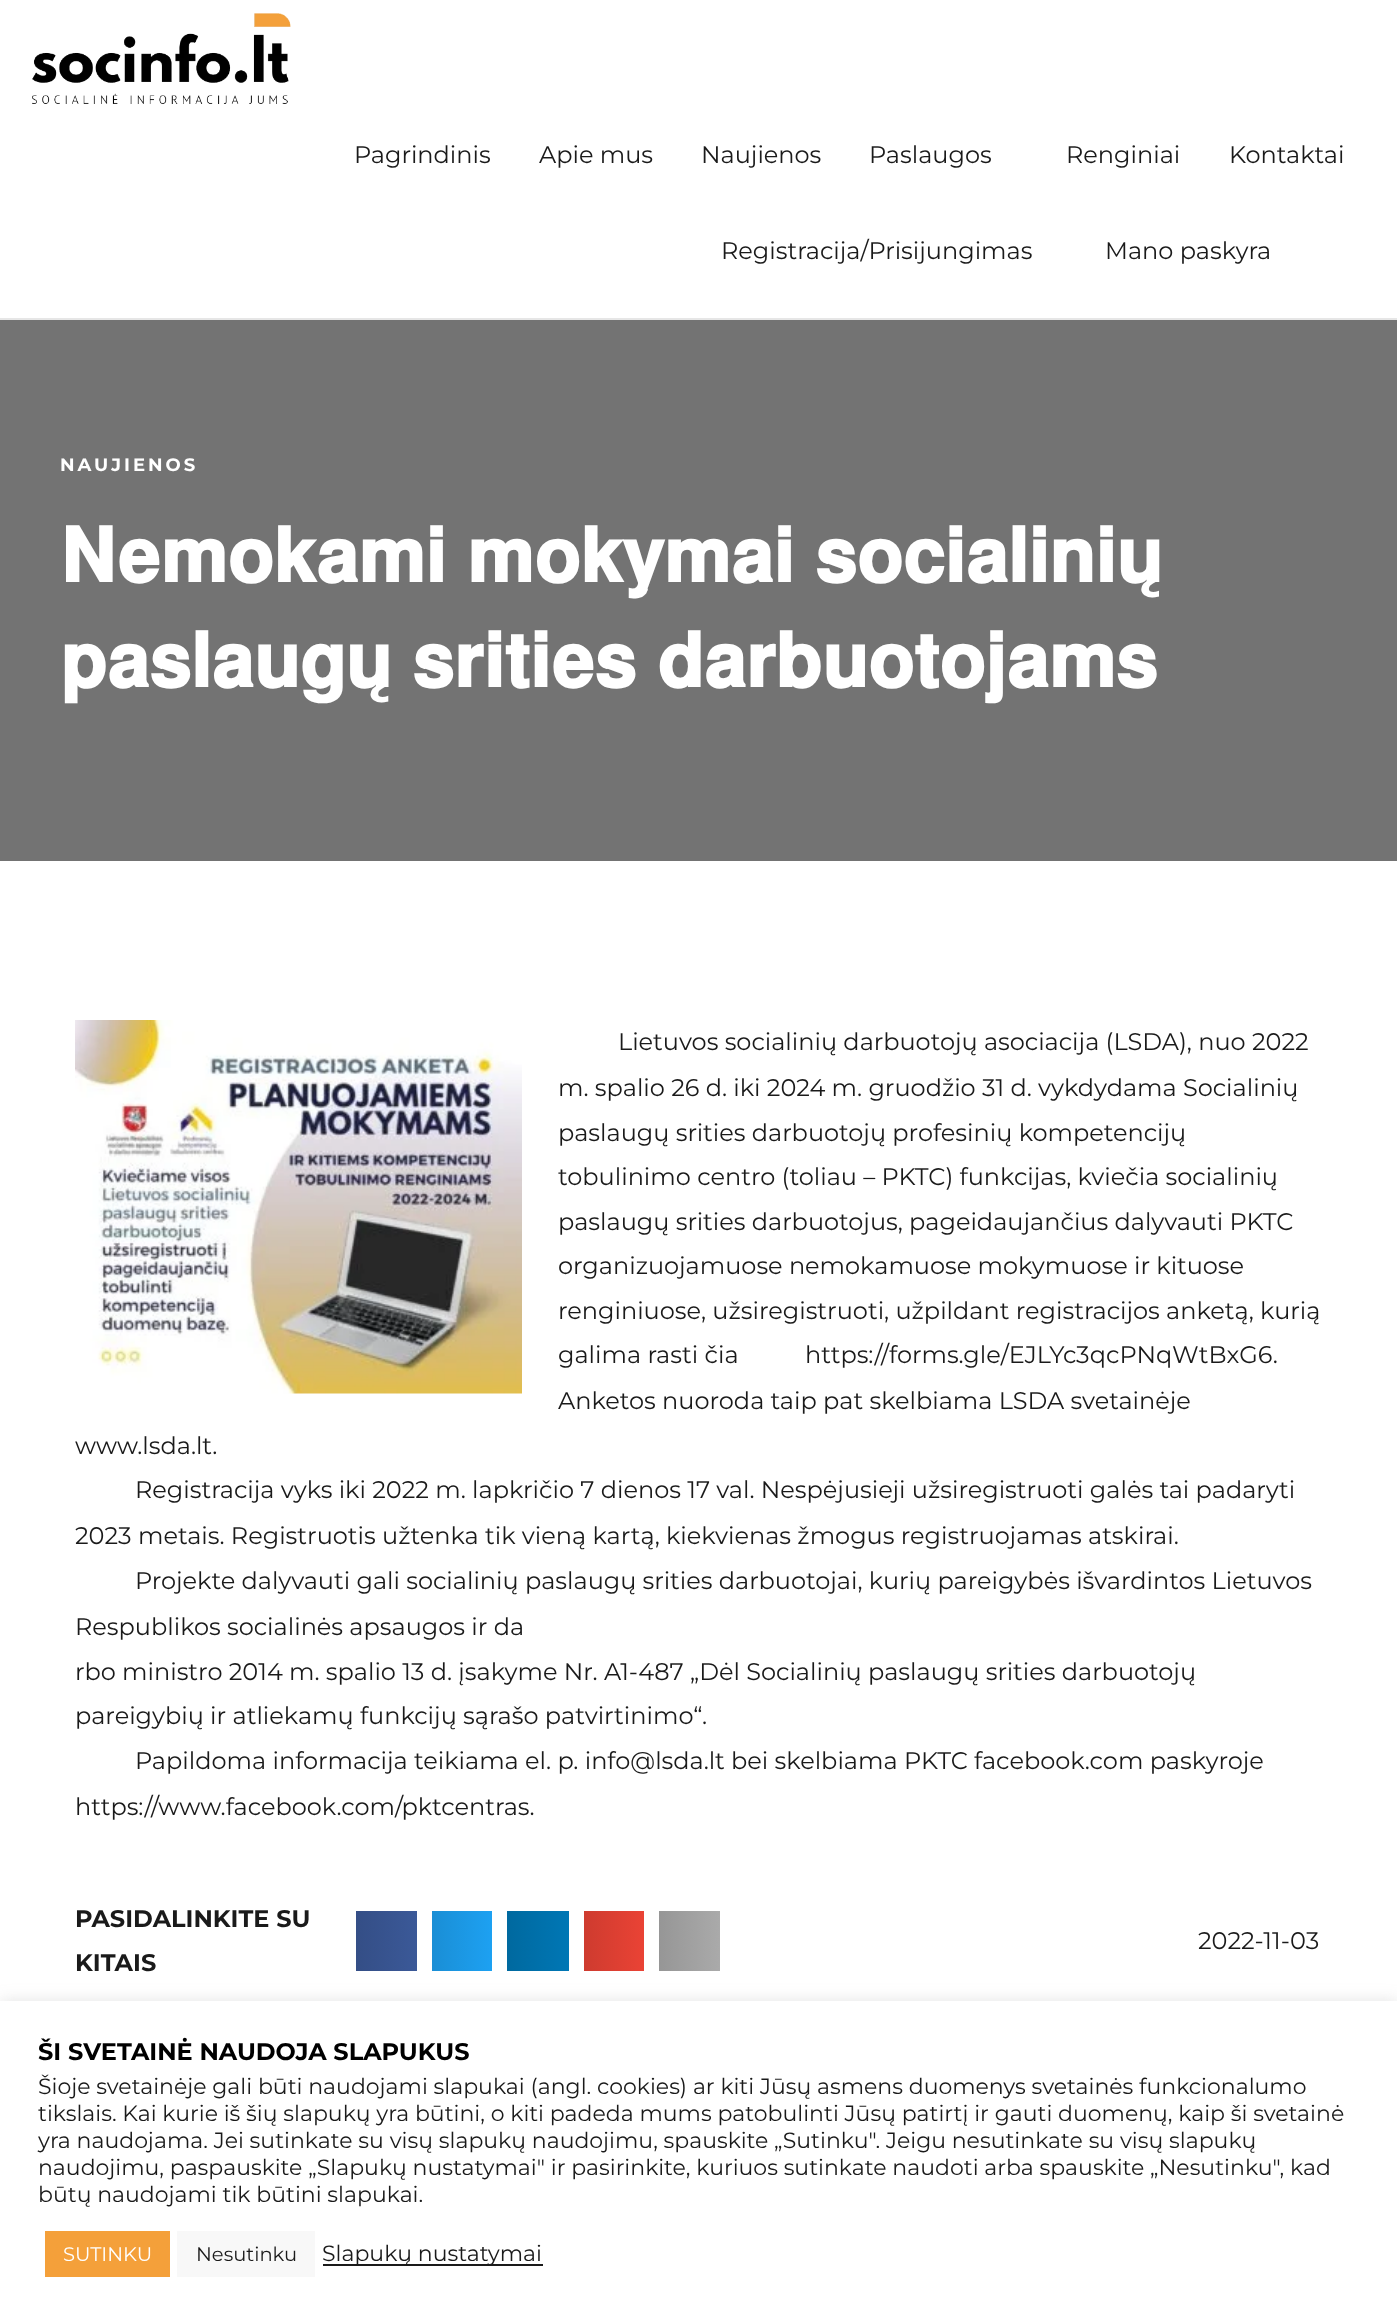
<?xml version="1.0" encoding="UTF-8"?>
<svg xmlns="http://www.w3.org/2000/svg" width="1397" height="2321">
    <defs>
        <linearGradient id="g1" gradientUnits="userSpaceOnUse" x1="356" y1="1941" x2="417" y2="1941"><stop offset="0" stop-color="#344E86"/><stop offset="1" stop-color="#3B5998"/></linearGradient>
        <linearGradient id="g2" gradientUnits="userSpaceOnUse" x1="432" y1="1941" x2="492" y2="1941"><stop offset="0" stop-color="#1A8ED5"/><stop offset="1" stop-color="#1DA1F2"/></linearGradient>
        <linearGradient id="g3" gradientUnits="userSpaceOnUse" x1="507" y1="1941" x2="569" y2="1941"><stop offset="0" stop-color="#00699F"/><stop offset="1" stop-color="#0077B5"/></linearGradient>
        <linearGradient id="g4" gradientUnits="userSpaceOnUse" x1="584" y1="1941" x2="644" y2="1941"><stop offset="0" stop-color="#CE3B2F"/><stop offset="1" stop-color="#EA4335"/></linearGradient>
        <linearGradient id="g5" gradientUnits="userSpaceOnUse" x1="659" y1="1941" x2="720" y2="1941"><stop offset="0" stop-color="#969696"/><stop offset="1" stop-color="#AAAAAA"/></linearGradient>
        <filter id="blur1" x="-50%" y="-200%" width="200%" height="500%"><feGaussianBlur stdDeviation="7.5"/></filter>
    </defs>
    <rect width="100%" height="100%" fill="#FFFFFF"/>
    <rect x="0" y="318" width="1397" height="2" fill="#E6E6E6"/>
    <image x="32" y="13" width="259" height="91" href="img_01.png"/>
    <text x="354" y="163" font-family="Montserrat" font-size="24" fill="#1A1A1A">Pagrindinis</text>
    <text x="539" y="163" font-family="Montserrat" font-size="24" fill="#1A1A1A">Apie mus</text>
    <text x="701" y="163" font-family="Montserrat" font-size="24" fill="#1A1A1A">Naujienos</text>
    <text x="869" y="163" font-family="Montserrat" font-size="24" fill="#1A1A1A">Paslaugos</text>
    <text x="1066" y="163" font-family="Montserrat" font-size="24" fill="#1A1A1A">Renginiai</text>
    <text x="1229" y="163" font-family="Montserrat" font-size="24" fill="#1A1A1A">Kontaktai</text>
    <text x="721" y="259" font-family="Montserrat" font-size="24" fill="#1A1A1A">Registracija/Prisijungimas</text>
    <text x="1105" y="259" font-family="Montserrat" font-size="24" fill="#1A1A1A">Mano paskyra</text>
    <rect x="0" y="320" width="1397" height="541" fill="#737373"/>
    <text x="60" y="471" font-family="Montserrat" font-size="18" font-weight="700" letter-spacing="3" fill="#FFFFFF">NAUJIENOS</text>
    <text font-family="FreeSans" font-size="75" font-weight="700" fill="#FFFFFF">
        <tspan x="60" y="582" word-spacing="2">𝐍𝐞𝐦𝐨𝐤𝐚𝐦𝐢 𝐦𝐨𝐤𝐲𝐦𝐚𝐢 𝐬𝐨𝐜𝐢𝐚𝐥𝐢𝐧𝐢𝐮̨</tspan>
        <tspan x="60" y="687" word-spacing="2">𝐩𝐚𝐬𝐥𝐚𝐮𝐠𝐮̨ 𝐬𝐫𝐢𝐭𝐢𝐞𝐬 𝐝𝐚𝐫𝐛𝐮𝐨𝐭𝐨𝐣𝐚𝐦𝐬</tspan>
    </text>
    <image x="75" y="1020" width="447" height="374" href="img_02.png"/>
    <text x="618" y="1050" font-family="Montserrat" font-size="24" fill="#1A1A1A">Lietuvos socialinių darbuotojų asociacija (LSDA), nuo 2022</text>
    <text font-family="Montserrat" font-size="24" fill="#1A1A1A">
        <tspan x="558" y="1096">m. spalio 26 d. iki 2024 m. gruodžio 31 d. vykdydama Socialinių</tspan>
        <tspan x="558" y="1141">paslaugų srities darbuotojų profesinių kompetencijų</tspan>
        <tspan x="558" y="1185">tobulinimo centro (toliau – PKTC) funkcijas, kviečia socialinių</tspan>
        <tspan x="558" y="1230">paslaugų srities darbuotojus, pageidaujančius dalyvauti PKTC</tspan>
        <tspan x="558" y="1274">organizuojamuose nemokamuose mokymuose ir kituose</tspan>
        <tspan x="558" y="1319">renginiuose, užsiregistruoti, užpildant registracijos anketą, kurią</tspan>
        <tspan x="558" y="1363">galima rasti čia</tspan>
    </text>
    <text x="805" y="1363" font-family="Montserrat" font-size="24" fill="#1A1A1A">https://forms.gle/EJLYc3qcPNqWtBxG6.</text>
    <text x="558" y="1409" font-family="Montserrat" font-size="24" fill="#1A1A1A">Anketos nuoroda taip pat skelbiama LSDA svetainėje</text>
    <text x="75" y="1454" font-family="Montserrat" font-size="24" fill="#1A1A1A">www.lsda.lt.</text>
    <text x="135" y="1498" font-family="Montserrat" font-size="24" fill="#1A1A1A">Registracija vyks iki 2022 m. lapkričio 7 dienos 17 val. Nespėjusieji užsiregistruoti galės tai padaryti</text>
    <text x="75" y="1544" font-family="Montserrat" font-size="24" fill="#1A1A1A">2023 metais. Registruotis užtenka tik vieną kartą, kiekvienas žmogus registruojamas atskirai.</text>
    <text x="135" y="1589" font-family="Montserrat" font-size="24" fill="#1A1A1A">Projekte dalyvauti gali socialinių paslaugų srities darbuotojai, kurių pareigybės išvardintos Lietuvos</text>
    <text font-family="Montserrat" font-size="24" fill="#1A1A1A">
        <tspan x="75" y="1635">Respublikos socialinės apsaugos ir da</tspan>
        <tspan x="75" y="1680">rbo ministro 2014 m. spalio 13 d. įsakyme Nr. A1-487 „Dėl Socialinių paslaugų srities darbuotojų</tspan>
        <tspan x="75" y="1724">pareigybių ir atliekamų funkcijų sąrašo patvirtinimo“.</tspan>
    </text>
    <text x="135" y="1769" font-family="Montserrat" font-size="24" fill="#1A1A1A">Papildoma informacija teikiama el. p. info@lsda.lt bei skelbiama PKTC facebook.com paskyroje</text>
    <text x="75" y="1815" font-family="Montserrat" font-size="24" fill="#1A1A1A">https://www.facebook.com/pktcentras.</text>
    <text font-family="Montserrat" font-size="24" font-weight="700" fill="#1A1A1A">
        <tspan x="75" y="1927">PASIDALINKITE SU</tspan>
        <tspan x="75" y="1971">KITAIS</tspan>
    </text>
    <rect x="356" y="1911" width="61" height="60" fill="url(#g1)"/>
    <rect x="432" y="1911" width="60" height="60" fill="url(#g2)"/>
    <rect x="507" y="1911" width="62" height="60" fill="url(#g3)"/>
    <rect x="584" y="1911" width="60" height="60" fill="url(#g4)"/>
    <rect x="659" y="1911" width="61" height="60" fill="url(#g5)"/>
    <text x="1198" y="1949" font-family="Montserrat" font-size="24" fill="#1A1A1A">2022-11-03</text>
    <rect x="0" y="2000" width="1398" height="321" fill="#ACABAB" fill-opacity="0.3" filter="url(#blur1)"/>
    <rect x="0" y="2001" width="1397" height="320" fill="#FFFFFF"/>
    <text x="38" y="2060" font-family="Montserrat" font-size="24" font-weight="700" fill="#000000">ŠI SVETAINĖ NAUDOJA SLAPUKUS</text>
    <text font-family="Montserrat" font-size="22" fill="#1A1A1A">
        <tspan x="38" y="2094">Šioje svetainėje gali būti naudojami slapukai (angl. cookies) ar kiti Jūsų asmens duomenys svetainės funkcionalumo</tspan>
        <tspan x="38" y="2121">tikslais. Kai kurie iš šių slapukų yra būtini, o kiti padeda mums patobulinti Jūsų patirtį ir gauti duomenų, kaip ši svetainė</tspan>
        <tspan x="38" y="2148">yra naudojama. Jei sutinkate su visų slapukų naudojimu, spauskite „Sutinku". Jeigu nesutinkate su visų slapukų</tspan>
        <tspan x="38" y="2175">naudojimu, paspauskite „Slapukų nustatymai" ir pasirinkite, kuriuos sutinkate naudoti arba spauskite „Nesutinku", kad</tspan>
        <tspan x="38" y="2202">būtų naudojami tik būtini slapukai.</tspan>
    </text>
    <rect x="45" y="2231" width="125" height="46" fill="#F4A03A"/>
    <text x="63" y="2261" font-family="Montserrat" font-size="19.5" fill="#FFFFFF">SUTINKU</text>
    <rect x="177" y="2231" width="138" height="46" fill="#F8F8F8"/>
    <text x="196" y="2261" font-family="Montserrat" font-size="19.5" fill="#1A1A1A">Nesutinku</text>
    <rect x="323" y="2264" width="220" height="2" fill="#1A1A1A"/>
    <text x="322" y="2261" font-family="Montserrat" font-size="22" fill="#1A1A1A">Slapukų nustatymai</text>
</svg>
